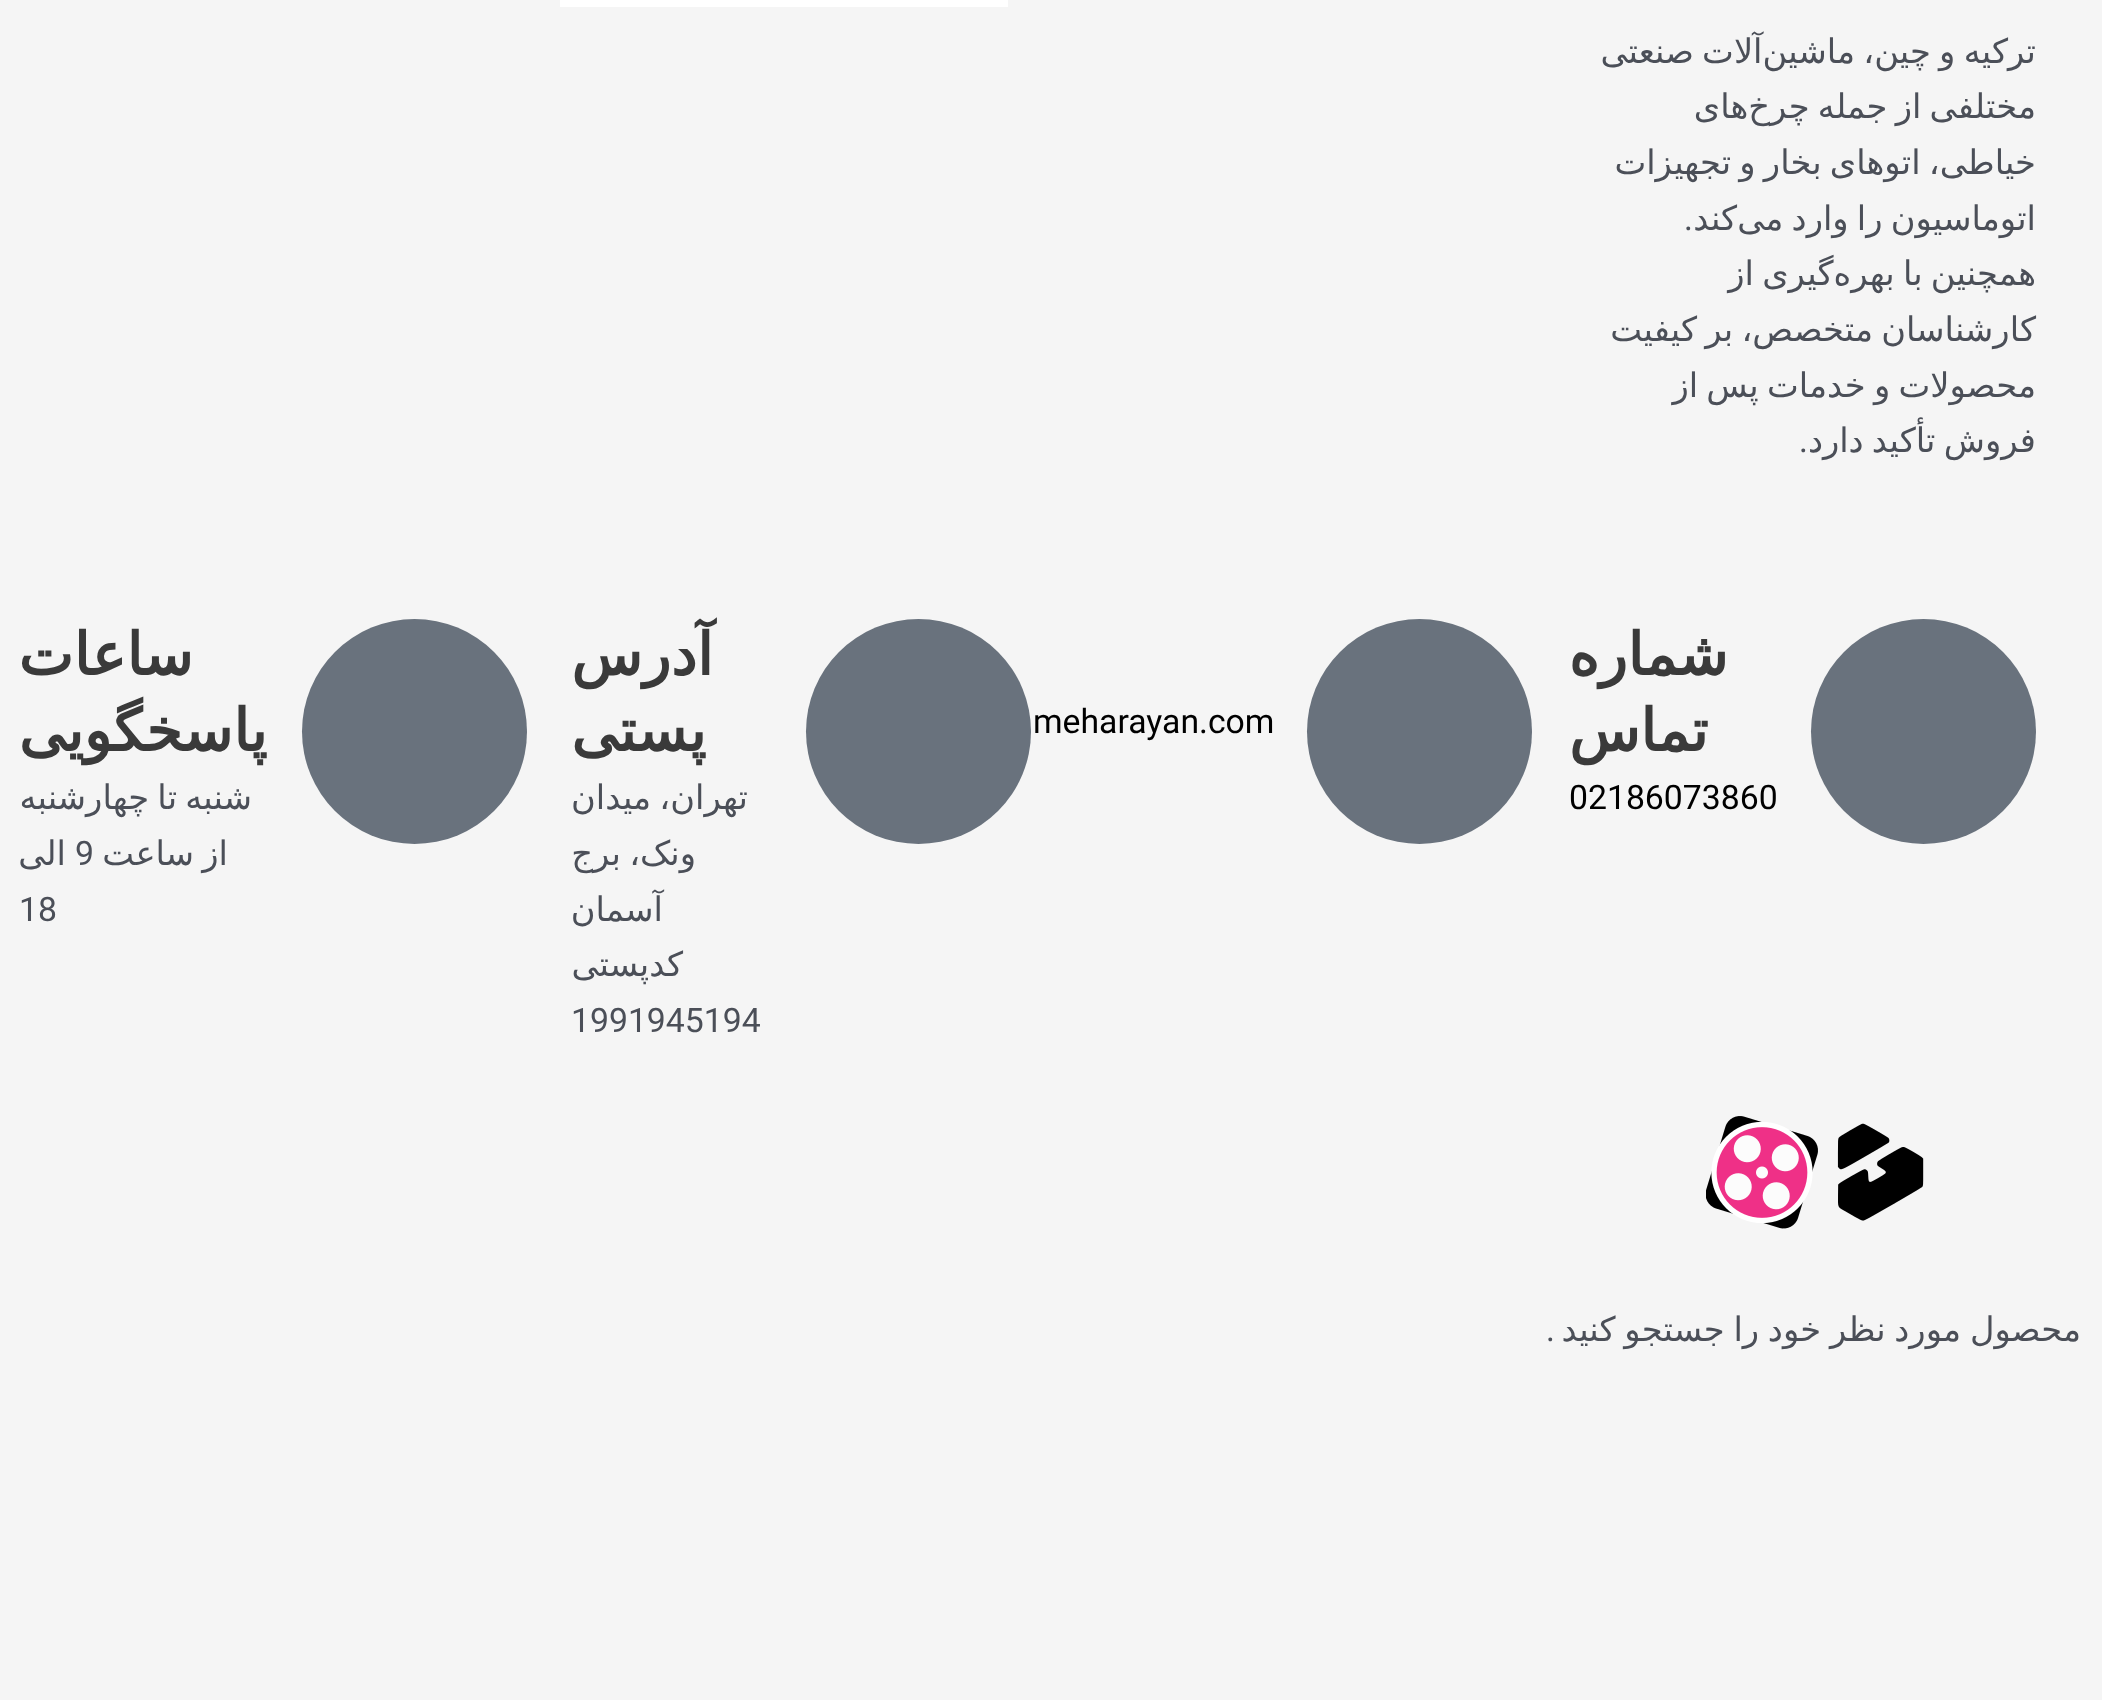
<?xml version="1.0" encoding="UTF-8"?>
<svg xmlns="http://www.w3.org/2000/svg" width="2102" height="1700">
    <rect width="100%" height="100%" fill="#F5F5F5"/>
    <rect x="560" y="0" width="448" height="7" fill="#FFFFFF"/>
    <text font-family="DejaVu Sans" font-size="33.75" direction="rtl" fill="#4B4F58">
        <tspan x="2036" y="63" word-spacing="-2.5">ترکیه و چین، ماشین‌آلات صنعتی</tspan>
        <tspan x="2036" y="118" word-spacing="-2.5">مختلفی از جمله چرخ‌های</tspan>
        <tspan x="2036" y="174" word-spacing="-2.5">خیاطی، اتوهای بخار و تجهیزات</tspan>
        <tspan x="2036" y="230" word-spacing="-2.5">اتوماسیون را وارد می‌کند</tspan>
    </text>
    <text x="1693" y="230" font-family="Roboto" font-size="33.75" direction="rtl" fill="#4B4F58">.</text>
    <text font-family="DejaVu Sans" font-size="33.75" direction="rtl" fill="#4B4F58">
        <tspan x="2036" y="285" word-spacing="-2.5">همچنین با بهره‌گیری از</tspan>
        <tspan x="2036" y="341" word-spacing="-2.5">کارشناسان متخصص، بر کیفیت</tspan>
        <tspan x="2036" y="397" word-spacing="-2.5">محصولات و خدمات پس از</tspan>
        <tspan x="2036" y="452" word-spacing="-2.5">فروش تأکید دارد</tspan>
    </text>
    <text x="1808" y="452" font-family="Roboto" font-size="33.75" direction="rtl" fill="#4B4F58">.</text>
    <circle cx="1923.5" cy="731.5" r="112.5" fill="#69727D"/>
    <text x="1728" y="675" font-family="DejaVu Sans" font-size="58.5" font-weight="700" direction="rtl" fill="#3A3A3A">شماره</text>
    <text x="1708" y="751" font-family="DejaVu Sans" font-size="58.5" font-weight="700" direction="rtl" fill="#3A3A3A">تماس</text>
    <text x="1569" y="809" font-family="Roboto" font-size="33.75" fill="#000000">02186073860</text>
    <circle cx="1419.5" cy="731.5" r="112.5" fill="#69727D"/>
    <text x="1033" y="733" font-family="Roboto" font-size="33.75" fill="#000000">meharayan.com</text>
    <circle cx="918.5" cy="731.5" r="112.5" fill="#69727D"/>
    <text x="713" y="675" font-family="DejaVu Sans" font-size="58.5" font-weight="700" direction="rtl" fill="#3A3A3A">آدرس</text>
    <text x="706" y="751" font-family="DejaVu Sans" font-size="58.5" font-weight="700" direction="rtl" fill="#3A3A3A">پستی</text>
    <text x="748" y="809" word-spacing="-2.5" font-family="DejaVu Sans" font-size="33.75" direction="rtl" fill="#4B4F58">تهران، میدان</text>
    <text x="696" y="865" word-spacing="-2.5" font-family="DejaVu Sans" font-size="33.75" direction="rtl" fill="#4B4F58">ونک، برج</text>
    <text x="663" y="921" font-family="DejaVu Sans" font-size="33.75" direction="rtl" fill="#4B4F58">آسمان</text>
    <text x="683" y="976" font-family="DejaVu Sans" font-size="33.75" direction="rtl" fill="#4B4F58">کدپستی</text>
    <text x="571" y="1032" font-family="Roboto" font-size="33.75" fill="#4B4F58">1991945194</text>
    <circle cx="414.5" cy="731.5" r="112.5" fill="#69727D"/>
    <text x="193" y="675" font-family="DejaVu Sans" font-size="58.5" font-weight="700" direction="rtl" fill="#3A3A3A">ساعات</text>
    <text x="267" y="751" font-family="DejaVu Sans" font-size="58.5" font-weight="700" direction="rtl" fill="#3A3A3A">پاسخگویی</text>
    <text x="252" y="809" word-spacing="-2.5" font-family="DejaVu Sans" font-size="33.75" direction="rtl" fill="#4B4F58">شنبه تا چهارشنبه</text>
    <text x="228" y="865" word-spacing="-2.5" font-family="DejaVu Sans" font-size="33.75" direction="rtl" fill="#4B4F58">از ساعت</text>
    <text x="75" y="865" font-family="Roboto" font-size="33.75" fill="#4B4F58">9</text>
    <text x="66" y="865" font-family="DejaVu Sans" font-size="33.75" direction="rtl" fill="#4B4F58">الی</text>
    <text x="19" y="921" font-family="Roboto" font-size="33.75" fill="#4B4F58">18</text>
    <image x="1837" y="1123" width="87" height="98" href="img_01.png"/>
    <image x="1706" y="1116" width="112" height="113" href="img_02.png"/>
    <text x="2081" y="1341" word-spacing="-2" font-family="DejaVu Sans" font-size="33.75" direction="rtl" fill="#4B4F58">محصول مورد نظر خود را جستجو کنید</text>
    <text x="1555" y="1341" font-family="Roboto" font-size="33.75" direction="rtl" fill="#4B4F58">.</text>
</svg>
